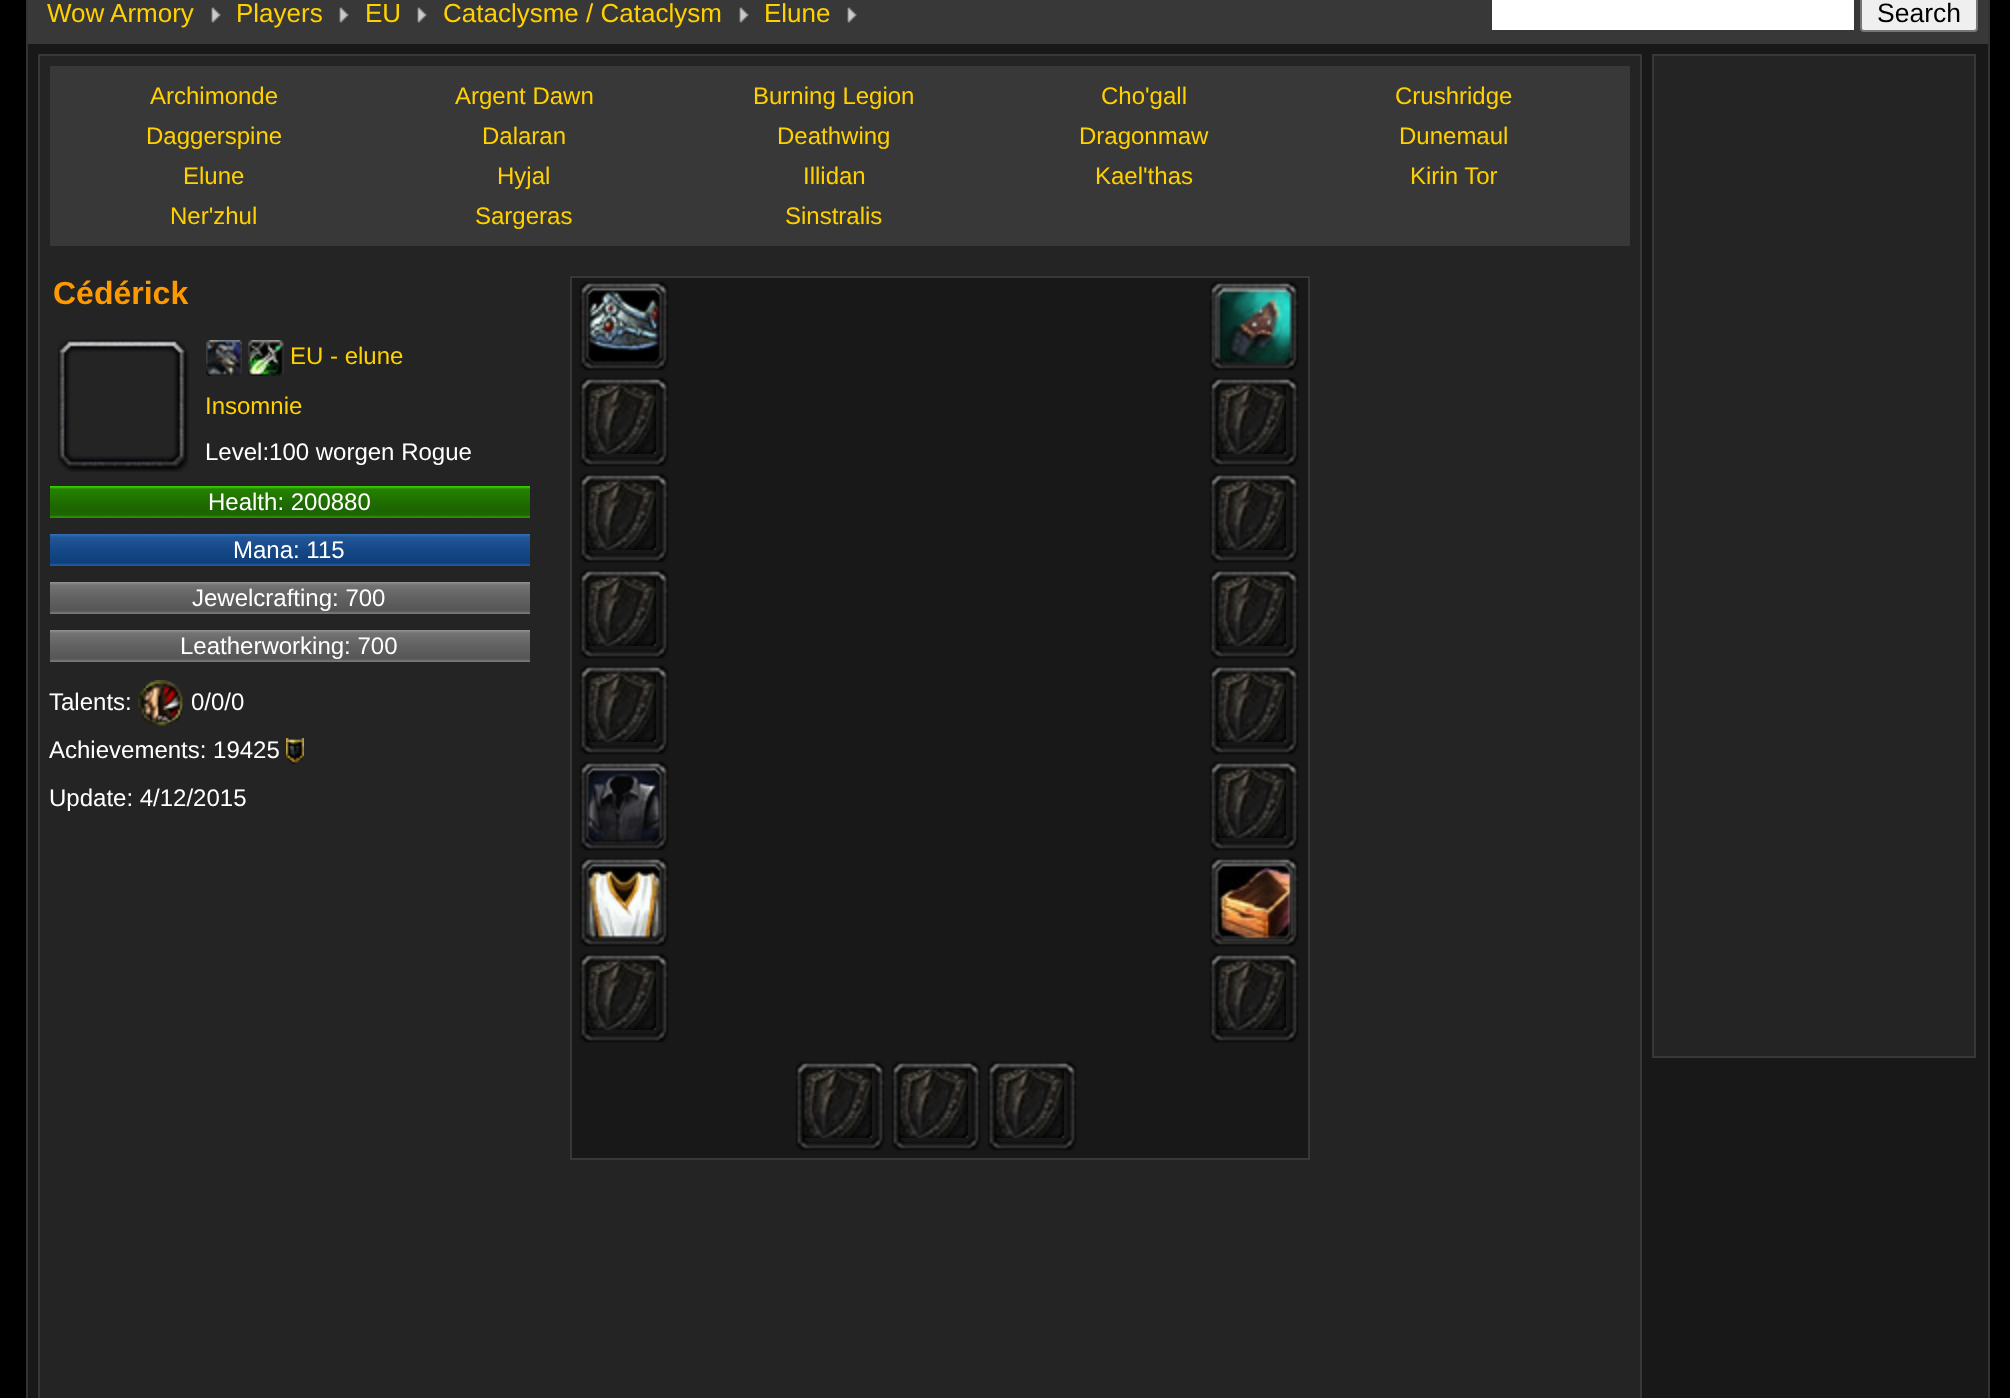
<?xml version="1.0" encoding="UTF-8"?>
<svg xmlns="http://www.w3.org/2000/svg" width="2010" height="1398">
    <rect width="100%" height="100%" fill="#000000"/>
    <rect x="28" y="44" width="1960" height="1354" fill="#181818"/>
    <rect x="1988" y="0" width="2" height="1398" fill="#333333"/>
    <rect x="26" y="0" width="2" height="1398" fill="#333333"/>
    <rect x="28" y="0" width="1960" height="44" fill="#383838"/>
    <image x="211" y="7" width="10" height="16" href="img_01.png"/>
    <text x="47" y="22" font-family="Liberation Sans" font-size="26" fill="#FFD100">Wow Armory</text>
    <image x="339" y="7" width="10" height="16" href="img_01.png"/>
    <text x="236" y="22" font-family="Liberation Sans" font-size="26" fill="#FFD100">Players</text>
    <image x="417" y="7" width="10" height="16" href="img_01.png"/>
    <text x="365" y="22" font-family="Liberation Sans" font-size="26" fill="#FFD100">EU</text>
    <image x="739" y="7" width="10" height="16" href="img_01.png"/>
    <text x="443" y="22" font-family="Liberation Sans" font-size="26" fill="#FFD100">Cataclysme / Cataclysm</text>
    <image x="847" y="7" width="10" height="16" href="img_01.png"/>
    <text x="764" y="22" font-family="Liberation Sans" font-size="26" fill="#FFD100">Elune</text>
    <rect x="1492" y="0" width="362" height="30" fill="#FFFFFF"/>
    <rect x="1861" y="-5" width="116" height="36" rx="3" fill="#EFEFEF" stroke="#767676" stroke-width="2"/>
    <text x="1877" y="22" font-family="Liberation Sans" font-size="26.5" fill="#000000">Search</text>
    <rect x="39" y="55" width="1602" height="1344" fill="#242424" stroke="#383838" stroke-width="2"/>
    <rect x="50" y="66" width="1580" height="180" fill="#383838"/>
    <text x="150" y="104" font-family="Liberation Sans" font-size="24" fill="#FFD100">Archimonde</text>
    <text x="455" y="104" font-family="Liberation Sans" font-size="24" fill="#FFD100">Argent Dawn</text>
    <text x="753" y="104" font-family="Liberation Sans" font-size="24" fill="#FFD100">Burning Legion</text>
    <text x="1101" y="104" font-family="Liberation Sans" font-size="24" fill="#FFD100">Cho'gall</text>
    <text x="1395" y="104" font-family="Liberation Sans" font-size="24" fill="#FFD100">Crushridge</text>
    <text x="146" y="144" font-family="Liberation Sans" font-size="24" fill="#FFD100">Daggerspine</text>
    <text x="482" y="144" font-family="Liberation Sans" font-size="24" fill="#FFD100">Dalaran</text>
    <text x="777" y="144" font-family="Liberation Sans" font-size="24" fill="#FFD100">Deathwing</text>
    <text x="1079" y="144" font-family="Liberation Sans" font-size="24" fill="#FFD100">Dragonmaw</text>
    <text x="1399" y="144" font-family="Liberation Sans" font-size="24" fill="#FFD100">Dunemaul</text>
    <text x="183" y="184" font-family="Liberation Sans" font-size="24" fill="#FFD100">Elune</text>
    <text x="497" y="184" font-family="Liberation Sans" font-size="24" fill="#FFD100">Hyjal</text>
    <text x="803" y="184" font-family="Liberation Sans" font-size="24" fill="#FFD100">Illidan</text>
    <text x="1095" y="184" font-family="Liberation Sans" font-size="24" fill="#FFD100">Kael'thas</text>
    <text x="1410" y="184" font-family="Liberation Sans" font-size="24" fill="#FFD100">Kirin Tor</text>
    <text x="170" y="224" font-family="Liberation Sans" font-size="24" fill="#FFD100">Ner'zhul</text>
    <text x="475" y="224" font-family="Liberation Sans" font-size="24" fill="#FFD100">Sargeras</text>
    <text x="785" y="224" font-family="Liberation Sans" font-size="24" fill="#FFD100">Sinstralis</text>
    <text x="53" y="304" font-family="Liberation Sans" font-size="32" font-weight="700" fill="#FE9900">Cédérick</text>
    <image x="57" y="339" width="132" height="133" href="img_02.png"/>
    <image x="206" y="340" width="36" height="36" href="img_03.png"/>
    <image x="248" y="340" width="36" height="36" href="img_04.png"/>
    <text x="290" y="364" font-family="Liberation Sans" font-size="24" fill="#FFD100">EU - elune</text>
    <text x="205" y="414" font-family="Liberation Sans" font-size="24" fill="#FFD100">Insomnie</text>
    <text x="205" y="460" font-family="Liberation Sans" font-size="24" fill="#FFFFFF">Level:100 worgen Rogue</text>
    <image x="50" y="486" width="480" height="32" href="img_05.png"/>
    <text x="208" y="510" font-family="Liberation Sans" font-size="24" fill="#FFFFFF">Health: 200880</text>
    <image x="50" y="534" width="480" height="32" href="img_06.png"/>
    <text x="233" y="558" font-family="Liberation Sans" font-size="24" fill="#FFFFFF">Mana: 115</text>
    <image x="50" y="582" width="480" height="32" href="img_07.png"/>
    <text x="192" y="606" font-family="Liberation Sans" font-size="24" fill="#FFFFFF">Jewelcrafting: 700</text>
    <image x="50" y="630" width="480" height="32" href="img_07.png"/>
    <text x="180" y="654" font-family="Liberation Sans" font-size="24" fill="#FFFFFF">Leatherworking: 700</text>
    <text x="49" y="710" font-family="Liberation Sans" font-size="24" fill="#FFFFFF">Talents:</text>
    <image x="138" y="680" width="46" height="46" href="img_08.png"/>
    <text x="191" y="710" font-family="Liberation Sans" font-size="24" fill="#FFFFFF">0/0/0</text>
    <text x="49" y="758" font-family="Liberation Sans" font-size="24" fill="#FFFFFF">Achievements: 19425</text>
    <image x="286" y="738" width="18" height="26" href="img_09.png"/>
    <text x="49" y="806" font-family="Liberation Sans" font-size="24" fill="#FFFFFF">Update: 4/12/2015</text>
    <rect x="571" y="277" width="738" height="882" fill="#181818" stroke="#383838" stroke-width="2"/>
    <image x="584" y="286" width="80" height="80" href="img_10.png"/>
    <image x="579" y="281" width="90" height="90" href="img_11.png"/>
    <image x="584" y="382" width="72" height="72" href="img_12.png"/>
    <image x="579" y="377" width="90" height="90" href="img_13.png"/>
    <image x="584" y="478" width="72" height="72" href="img_12.png"/>
    <image x="579" y="473" width="90" height="90" href="img_13.png"/>
    <image x="584" y="574" width="72" height="72" href="img_12.png"/>
    <image x="579" y="569" width="90" height="90" href="img_13.png"/>
    <image x="584" y="670" width="72" height="72" href="img_12.png"/>
    <image x="579" y="665" width="90" height="90" href="img_13.png"/>
    <image x="584" y="766" width="80" height="80" href="img_14.png"/>
    <image x="579" y="761" width="90" height="90" href="img_15.png"/>
    <image x="584" y="862" width="80" height="80" href="img_16.png"/>
    <image x="579" y="857" width="90" height="90" href="img_17.png"/>
    <image x="584" y="958" width="72" height="72" href="img_12.png"/>
    <image x="579" y="953" width="90" height="90" href="img_13.png"/>
    <image x="1214" y="286" width="80" height="80" href="img_18.png"/>
    <image x="1209" y="281" width="90" height="90" href="img_19.png"/>
    <image x="1214" y="382" width="72" height="72" href="img_12.png"/>
    <image x="1209" y="377" width="90" height="90" href="img_13.png"/>
    <image x="1214" y="478" width="72" height="72" href="img_12.png"/>
    <image x="1209" y="473" width="90" height="90" href="img_13.png"/>
    <image x="1214" y="574" width="72" height="72" href="img_12.png"/>
    <image x="1209" y="569" width="90" height="90" href="img_13.png"/>
    <image x="1214" y="670" width="72" height="72" href="img_12.png"/>
    <image x="1209" y="665" width="90" height="90" href="img_13.png"/>
    <image x="1214" y="766" width="72" height="72" href="img_12.png"/>
    <image x="1209" y="761" width="90" height="90" href="img_13.png"/>
    <image x="1214" y="862" width="80" height="80" href="img_20.png"/>
    <image x="1209" y="857" width="90" height="90" href="img_21.png"/>
    <image x="1214" y="958" width="72" height="72" href="img_12.png"/>
    <image x="1209" y="953" width="90" height="90" href="img_13.png"/>
    <image x="800" y="1066" width="72" height="72" href="img_12.png"/>
    <image x="795" y="1061" width="90" height="90" href="img_13.png"/>
    <image x="896" y="1066" width="72" height="72" href="img_12.png"/>
    <image x="891" y="1061" width="90" height="90" href="img_13.png"/>
    <image x="992" y="1066" width="72" height="72" href="img_12.png"/>
    <image x="987" y="1061" width="90" height="90" href="img_13.png"/>
    <rect x="1653" y="55" width="322" height="1002" fill="#242424" stroke="#383838" stroke-width="2"/>
</svg>
